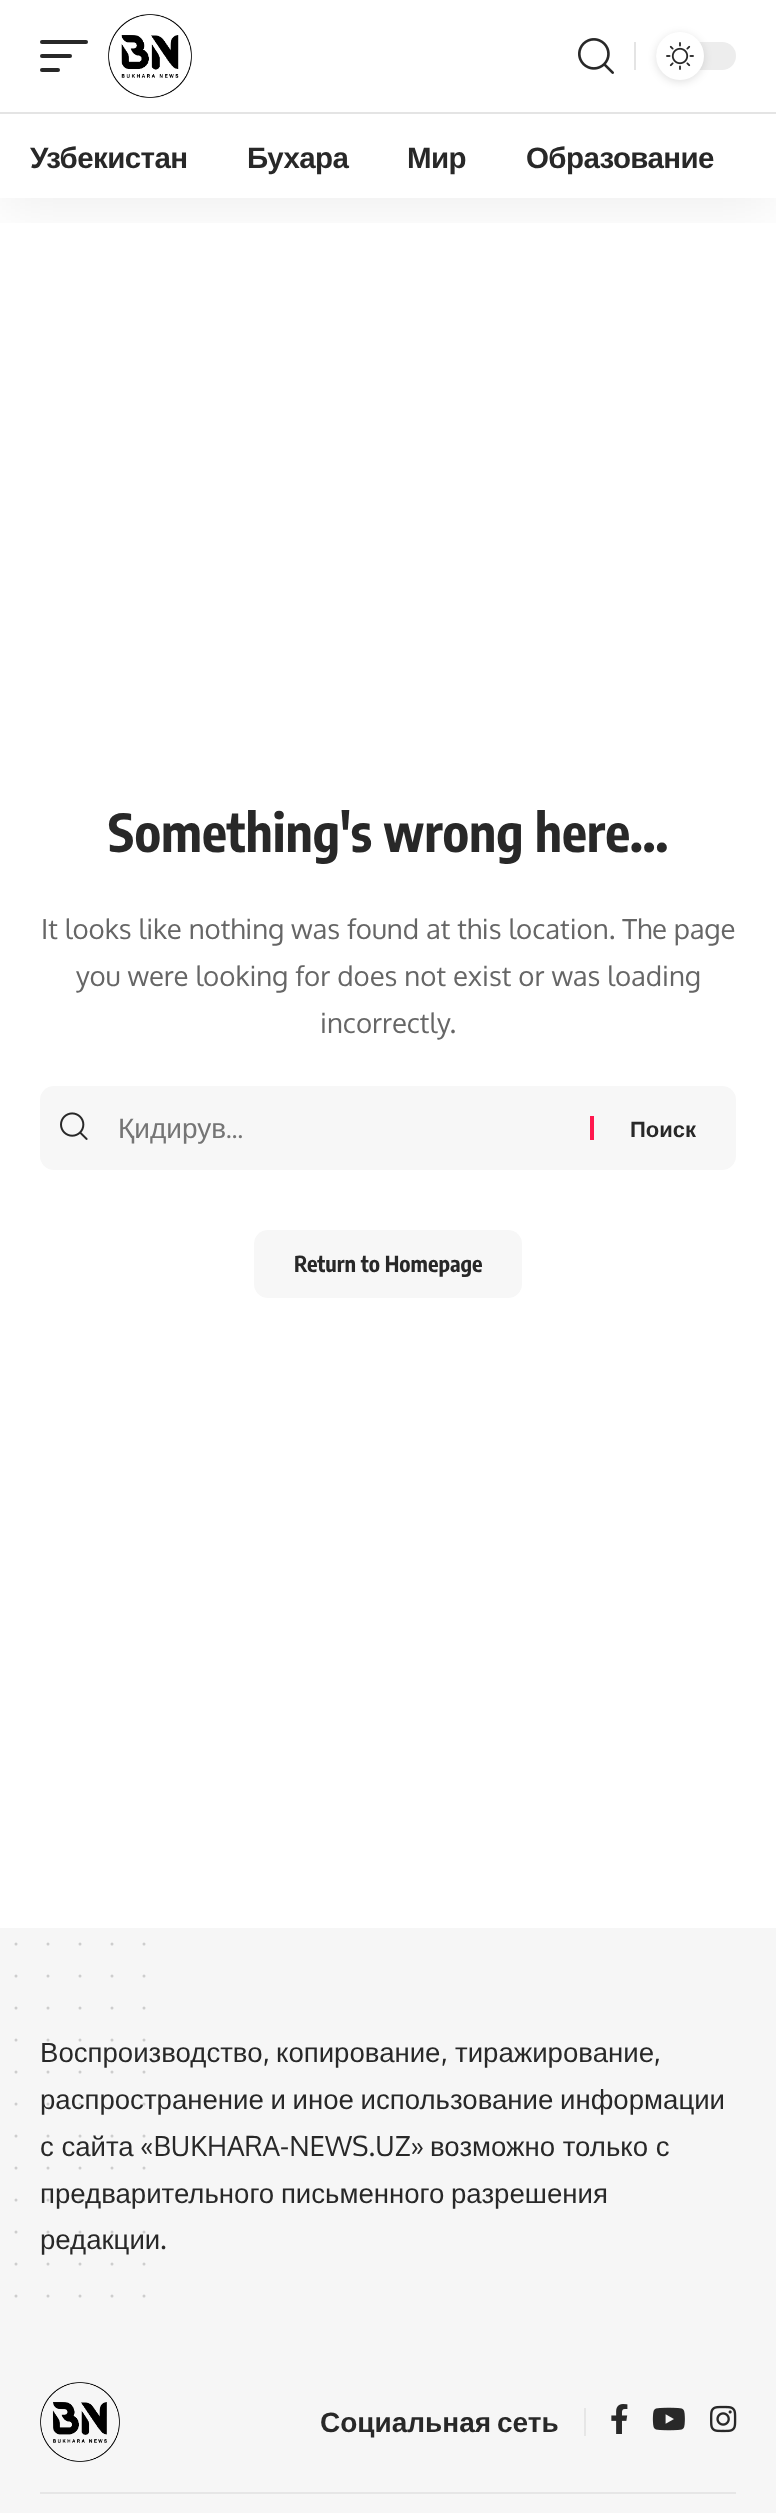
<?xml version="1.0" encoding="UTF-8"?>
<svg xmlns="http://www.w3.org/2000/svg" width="776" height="2513">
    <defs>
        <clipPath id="clip1"><rect x="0" y="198" width="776" height="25"/></clipPath>
        <filter id="blur1" x="-50%" y="-200%" width="200%" height="500%"><feGaussianBlur stdDeviation="30"/></filter>
        <filter id="blur2" x="-50%" y="-200%" width="200%" height="500%"><feGaussianBlur stdDeviation="4"/></filter>
    </defs>
    <rect width="100%" height="100%" fill="#FFFFFF"/>
    <g clip-path="url(#clip1)">
        <rect x="0" y="8" width="776" height="198" fill="#000000" fill-opacity="0.07" filter="url(#blur1)"/>
    </g>
    <rect x="40" y="40" width="48" height="4" rx="2" fill="#282828"/>
    <rect x="40" y="54" width="32" height="4" rx="2" fill="#282828"/>
    <rect x="40" y="68" width="20" height="4" rx="2" fill="#282828"/>
    <image x="108" y="14" width="84" height="84" href="img_01.png"/>
    <image x="578" y="38" width="36" height="36" href="img_02.png"/>
    <rect x="634" y="42" width="2" height="28" fill="#E4E4E4"/>
    <rect x="656" y="42" width="80" height="28" rx="14" fill="#EDEDED"/>
    <rect x="656" y="34" width="48" height="48" rx="24" fill="#000000" fill-opacity="0.12" filter="url(#blur2)"/>
    <circle cx="680" cy="56" r="24" fill="#FFFFFF"/>
    <image x="666" y="42" width="28" height="28" href="img_03.png"/>
    <rect x="0" y="112" width="776" height="2" fill="#E4E4E4"/>
    <text x="30" y="168" font-family="Liberation Sans" font-size="29.5" font-weight="700" letter-spacing="-0.6" fill="#282828">Узбекистан</text>
    <text x="247" y="168" font-family="Liberation Sans" font-size="29.5" font-weight="700" letter-spacing="-0.6" fill="#282828">Бухара</text>
    <text x="407" y="168" font-family="Liberation Sans" font-size="29.5" font-weight="700" letter-spacing="-0.6" fill="#282828">Мир</text>
    <text x="526" y="168" font-family="Liberation Sans" font-size="29.5" font-weight="700" letter-spacing="-0.6" fill="#282828">Образование</text>
    <text x="108" y="852" font-family="Encode Sans Condensed" font-size="52" font-weight="700" fill="#282828">Something's wrong here...</text>
    <text x="41" y="939" font-family="Oxygen" font-size="27.6" fill="#666666">It looks like nothing was found at this location. The page</text>
    <text x="76" y="986" font-family="Oxygen" font-size="27.6" fill="#666666">you were looking for does not exist or was loading</text>
    <text x="320" y="1033" font-family="Oxygen" font-size="27.6" fill="#666666">incorrectly.</text>
    <rect x="40" y="1086" width="696" height="84" rx="14" fill="#F7F7F7"/>
    <image x="60" y="1112" width="28" height="28" href="img_04.png"/>
    <text x="118" y="1138" font-family="Liberation Sans" font-size="28" fill="#757575">Қидирув</text>
    <text x="226" y="1138" font-family="Encode Sans Condensed" font-size="28" fill="#757575">...</text>
    <rect x="590" y="1116" width="4" height="24" fill="#FF184E"/>
    <text x="630" y="1137" font-family="Liberation Sans" font-size="22" font-weight="700" fill="#282828">Поиск</text>
    <rect x="254" y="1230" width="268" height="68" rx="14" fill="#F7F7F7"/>
    <text x="294" y="1272" font-family="Encode Sans Condensed" font-size="22" font-weight="700" fill="#282828">Return to Homepage</text>
    <rect x="0" y="1928" width="776" height="585" fill="#F6F6F6"/>
    <path d="M 16 1944 V 2296.4" fill="none" stroke="#CDCDCD" stroke-width="3" stroke-linecap="round" stroke-dasharray="0 32"/>
    <path d="M 48 1944 V 2296.4" fill="none" stroke="#CDCDCD" stroke-width="3" stroke-linecap="round" stroke-dasharray="0 32"/>
    <path d="M 80 1944 V 2296.4" fill="none" stroke="#CDCDCD" stroke-width="3" stroke-linecap="round" stroke-dasharray="0 32"/>
    <path d="M 112 1944 V 2296.4" fill="none" stroke="#CDCDCD" stroke-width="3" stroke-linecap="round" stroke-dasharray="0 32"/>
    <path d="M 144 1944 V 2296.4" fill="none" stroke="#CDCDCD" stroke-width="3" stroke-linecap="round" stroke-dasharray="0 32"/>
    <text x="40" y="2062" font-family="Liberation Sans" font-size="27.6" fill="#282828">Воспроизводство</text>
    <text x="263" y="2062" font-family="Oxygen" font-size="27.6" fill="#282828">,</text>
    <text x="276" y="2062" font-family="Liberation Sans" font-size="27.6" fill="#282828">копирование</text>
    <text x="441" y="2062" font-family="Oxygen" font-size="27.6" fill="#282828">,</text>
    <text x="455" y="2062" font-family="Liberation Sans" font-size="27.6" fill="#282828">тиражирование</text>
    <text x="654" y="2062" font-family="Oxygen" font-size="27.6" fill="#282828">,</text>
    <text font-family="Liberation Sans" font-size="27.6" fill="#282828">
        <tspan x="40" y="2109" word-spacing="-1">распространение и иное использование информации</tspan>
        <tspan x="40" y="2156">с сайта</tspan>
    </text>
    <text x="140" y="2156" font-family="Oxygen" font-size="27.6" fill="#282828">«BUKHARA-NEWS.UZ»</text>
    <text x="430" y="2156" font-family="Liberation Sans" font-size="27.6" fill="#282828">возможно только с</text>
    <text font-family="Liberation Sans" font-size="27.6" fill="#282828">
        <tspan x="40" y="2203" word-spacing="-1">предварительного письменного разрешения</tspan>
        <tspan x="40" y="2249">редакции</tspan>
    </text>
    <text x="160" y="2249" font-family="Oxygen" font-size="27.6" fill="#282828">.</text>
    <image x="40" y="2382" width="80" height="80" href="img_05.png"/>
    <rect x="584" y="2408" width="2" height="28" fill="#E6E6E6"/>
    <text x="320" y="2432" word-spacing="-2" font-family="Liberation Sans" font-size="28" font-weight="700" fill="#282828">Социальная сеть</text>
    <image x="611" y="2404" width="17" height="30" href="img_06.png"/>
    <image x="652" y="2407" width="33" height="24" href="img_07.png"/>
    <image x="710" y="2405" width="27" height="28" href="img_08.png"/>
    <rect x="40" y="2492" width="696" height="2" fill="#E6E6E6"/>
</svg>
